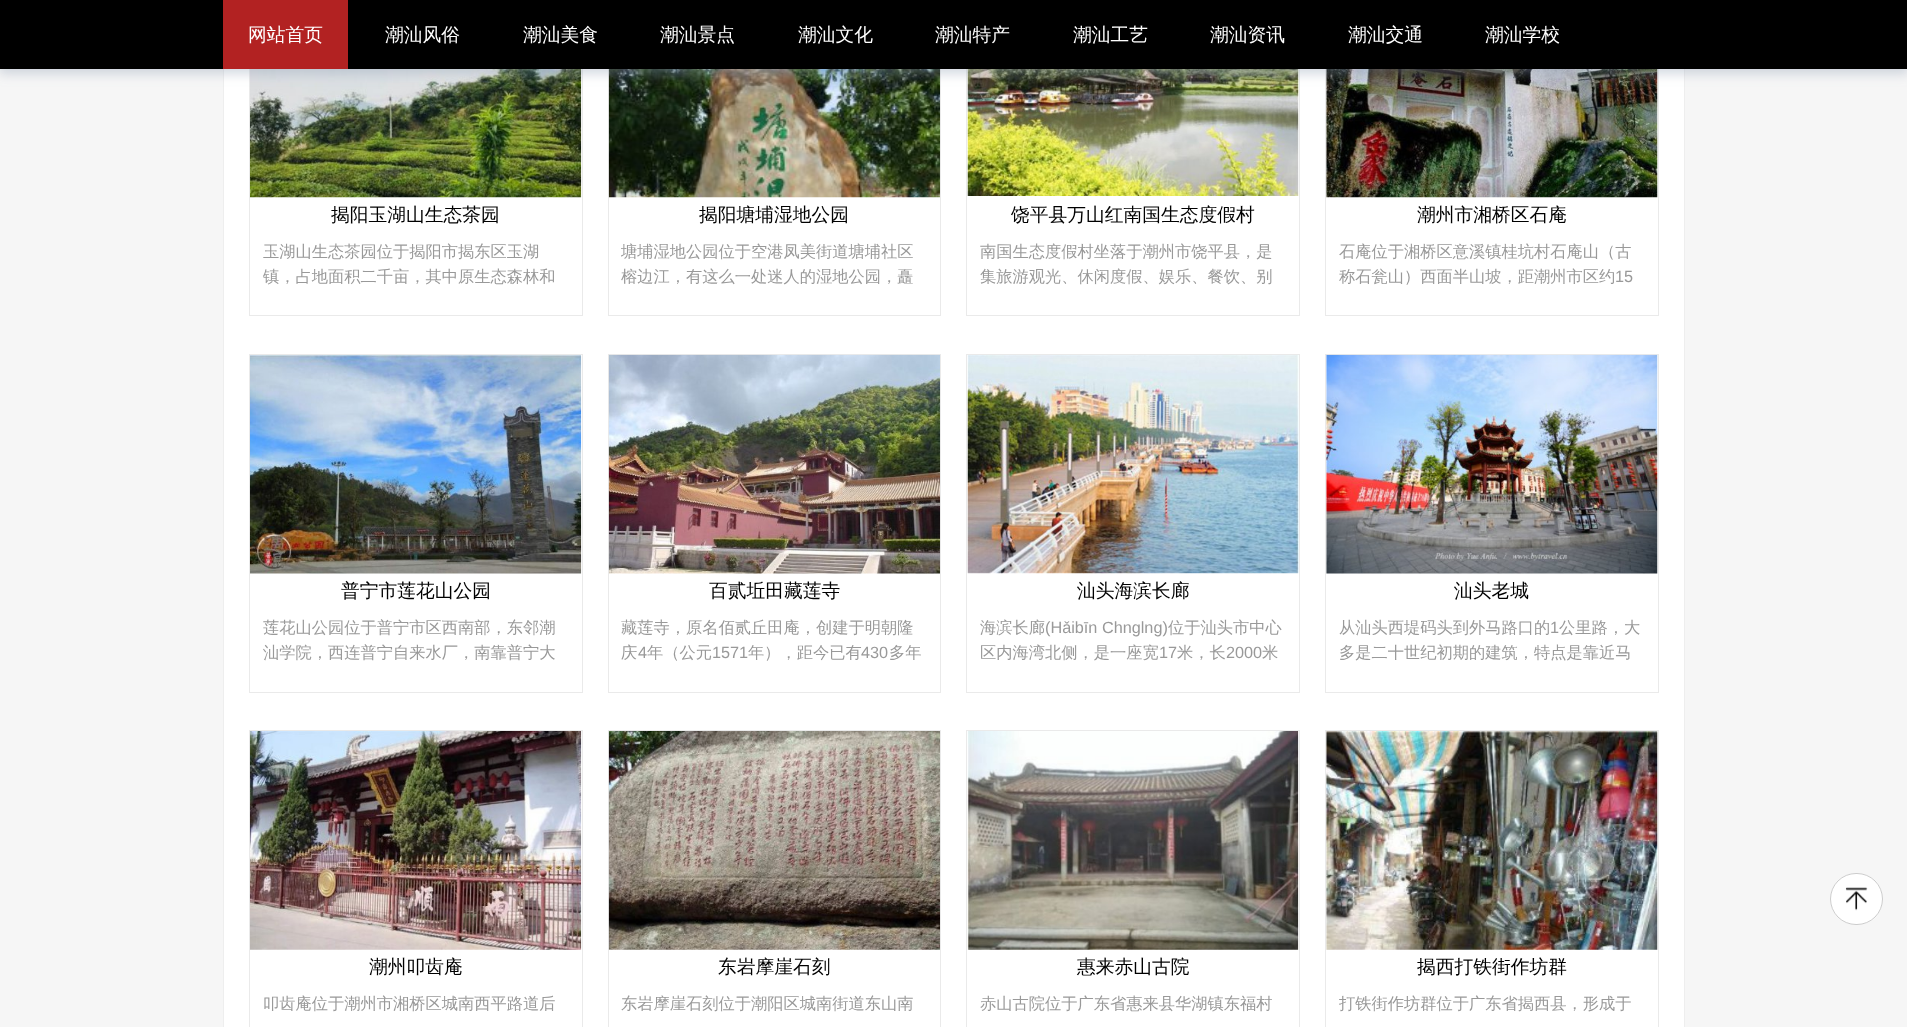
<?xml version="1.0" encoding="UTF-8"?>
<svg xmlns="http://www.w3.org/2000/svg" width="1907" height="1027">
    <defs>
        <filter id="blur1" x="-50%" y="-200%" width="200%" height="500%"><feGaussianBlur stdDeviation="6"/></filter>
    </defs>
    <rect width="100%" height="100%" fill="#F6F6F6"/>
    <rect x="224" y="69" width="1460" height="958" fill="#FFFFFF"/>
    <rect x="223.5" y="-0.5" width="1461" height="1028" fill="none" stroke="#EEEEEE"/>
    <rect x="249.5" y="-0.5" width="333" height="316" fill="none" stroke="#EAEAEA"/>
    <image x="250" y="69" width="332" height="129" href="img_01.png"/>
    <rect x="608.5" y="-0.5" width="332" height="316" fill="none" stroke="#EAEAEA"/>
    <image x="608" y="69" width="332" height="129" href="img_02.png"/>
    <rect x="966.5" y="-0.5" width="333" height="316" fill="none" stroke="#EAEAEA"/>
    <image x="967" y="69" width="332" height="127" href="img_03.png"/>
    <rect x="1325.5" y="-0.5" width="333" height="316" fill="none" stroke="#EAEAEA"/>
    <image x="1326" y="69" width="332" height="129" href="img_04.png"/>
    <rect x="-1" y="3" width="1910" height="71" fill="#90A1B4" fill-opacity="0.4" filter="url(#blur1)"/>
    <rect x="0" y="0" width="1907" height="69" fill="#000000"/>
    <rect x="223" y="0" width="125" height="69" fill="#B22222"/>
    <text x="248" y="41" font-family="WenQuanYi Zen Hei" font-size="18.75" font-weight="500" fill="#FFFFFF">网站首页</text>
    <text x="385" y="41" font-family="WenQuanYi Zen Hei" font-size="18.75" font-weight="500" fill="#FFFFFF">潮汕风俗</text>
    <text x="523" y="41" font-family="WenQuanYi Zen Hei" font-size="18.75" font-weight="500" fill="#FFFFFF">潮汕美食</text>
    <text x="660" y="41" font-family="WenQuanYi Zen Hei" font-size="18.75" font-weight="500" fill="#FFFFFF">潮汕景点</text>
    <text x="798" y="41" font-family="WenQuanYi Zen Hei" font-size="18.75" font-weight="500" fill="#FFFFFF">潮汕文化</text>
    <text x="935" y="41" font-family="WenQuanYi Zen Hei" font-size="18.75" font-weight="500" fill="#FFFFFF">潮汕特产</text>
    <text x="1073" y="41" font-family="WenQuanYi Zen Hei" font-size="18.75" font-weight="500" fill="#FFFFFF">潮汕工艺</text>
    <text x="1210" y="41" font-family="WenQuanYi Zen Hei" font-size="18.75" font-weight="500" fill="#FFFFFF">潮汕资讯</text>
    <text x="1348" y="41" font-family="WenQuanYi Zen Hei" font-size="18.75" font-weight="500" fill="#FFFFFF">潮汕交通</text>
    <text x="1485" y="41" font-family="WenQuanYi Zen Hei" font-size="18.75" font-weight="500" fill="#FFFFFF">潮汕学校</text>
    <text x="331" y="221" font-family="WenQuanYi Zen Hei" font-size="18.75" font-weight="500" fill="#000000">揭阳玉湖山生态茶园</text>
    <text font-family="WenQuanYi Zen Hei" font-size="16.25" font-weight="500" fill="#999999">
        <tspan x="263" y="257">玉湖山生态茶园位于揭阳市揭东区玉湖</tspan>
        <tspan x="263" y="282">镇，占地面积二千亩，其中原生态森林和</tspan>
    </text>
    <text x="699" y="221" font-family="WenQuanYi Zen Hei" font-size="18.75" font-weight="500" fill="#000000">揭阳塘埔湿地公园</text>
    <text font-family="WenQuanYi Zen Hei" font-size="16.25" font-weight="500" fill="#999999">
        <tspan x="621" y="257">塘埔湿地公园位于空港凤美街道塘埔社区</tspan>
        <tspan x="621" y="282">榕边江，有这么一处迷人的湿地公园，矗</tspan>
    </text>
    <text x="1011" y="221" font-family="WenQuanYi Zen Hei" font-size="18.75" font-weight="500" fill="#000000">饶平县万山红南国生态度假村</text>
    <text font-family="WenQuanYi Zen Hei" font-size="16.25" font-weight="500" fill="#999999">
        <tspan x="980" y="257">南国生态度假村坐落于潮州市饶平县，是</tspan>
        <tspan x="980" y="282">集旅游观光、休闲度假、娱乐、餐饮、别</tspan>
    </text>
    <text x="1417" y="221" font-family="WenQuanYi Zen Hei" font-size="18.75" font-weight="500" fill="#000000">潮州市湘桥区石庵</text>
    <text font-family="WenQuanYi Zen Hei" font-size="16.25" font-weight="500" fill="#999999">
        <tspan x="1339" y="257">石庵位于湘桥区意溪镇桂坑村石庵山（古</tspan>
        <tspan x="1339" y="282">称石瓮山）西面半山坡，距潮州市区约</tspan>
    </text>
    <text x="1615" y="282" font-family="Liberation Sans" font-size="16.25" fill="#999999">15</text>
    <rect x="249.5" y="354.5" width="333" height="338" fill="none" stroke="#EAEAEA"/>
    <image x="250" y="355" width="332" height="219" href="img_05.png"/>
    <text x="341" y="597" font-family="WenQuanYi Zen Hei" font-size="18.75" font-weight="500" fill="#000000">普宁市莲花山公园</text>
    <text font-family="WenQuanYi Zen Hei" font-size="16.25" font-weight="500" fill="#999999">
        <tspan x="263" y="633">莲花山公园位于普宁市区西南部，东邻潮</tspan>
        <tspan x="263" y="658">汕学院，西连普宁自来水厂，南靠普宁大</tspan>
    </text>
    <rect x="608.5" y="354.5" width="332" height="338" fill="none" stroke="#EAEAEA"/>
    <image x="608" y="354" width="332" height="220" href="img_06.png"/>
    <text x="709" y="597" font-family="WenQuanYi Zen Hei" font-size="18.75" font-weight="500" fill="#000000">百贰坵田藏莲寺</text>
    <text font-family="WenQuanYi Zen Hei" font-size="16.25" font-weight="500" fill="#999999">
        <tspan x="621" y="633">藏莲寺，原名佰贰丘田庵，创建于明朝隆</tspan>
        <tspan x="621" y="658">庆</tspan>
    </text>
    <text x="638" y="658" font-family="Liberation Sans" font-size="16.25" fill="#999999">4</text>
    <text x="647" y="658" font-family="WenQuanYi Zen Hei" font-size="16.25" font-weight="500" fill="#999999">年（公元</text>
    <text x="712" y="658" font-family="Liberation Sans" font-size="16.25" fill="#999999">1571</text>
    <text x="748" y="658" font-family="WenQuanYi Zen Hei" font-size="16.25" font-weight="500" fill="#999999">年），距今已有</text>
    <text x="861" y="658" font-family="Liberation Sans" font-size="16.25" fill="#999999">430</text>
    <text x="889" y="658" font-family="WenQuanYi Zen Hei" font-size="16.25" font-weight="500" fill="#999999">多年</text>
    <rect x="966.5" y="354.5" width="333" height="338" fill="none" stroke="#EAEAEA"/>
    <image x="967" y="355" width="332" height="219" href="img_07.png"/>
    <text x="1077" y="597" font-family="WenQuanYi Zen Hei" font-size="18.75" font-weight="500" fill="#000000">汕头海滨长廊</text>
    <text x="980" y="633" font-family="WenQuanYi Zen Hei" font-size="16.25" font-weight="500" fill="#999999">海滨长廊</text>
    <text x="1045" y="633" font-family="Liberation Sans" font-size="16.25" fill="#999999">(Hǎibīn Chnglng)</text>
    <text x="1168" y="633" font-family="WenQuanYi Zen Hei" font-size="16.25" font-weight="500" fill="#999999">位于汕头市中心</text>
    <text x="980" y="658" font-family="WenQuanYi Zen Hei" font-size="16.25" font-weight="500" fill="#999999">区内海湾北侧，是一座宽</text>
    <text x="1159" y="658" font-family="Liberation Sans" font-size="16.25" fill="#999999">17</text>
    <text x="1177" y="658" font-family="WenQuanYi Zen Hei" font-size="16.25" font-weight="500" fill="#999999">米，长</text>
    <text x="1226" y="658" font-family="Liberation Sans" font-size="16.25" fill="#999999">2000</text>
    <text x="1262" y="658" font-family="WenQuanYi Zen Hei" font-size="16.25" font-weight="500" fill="#999999">米</text>
    <rect x="1325.5" y="354.5" width="333" height="338" fill="none" stroke="#EAEAEA"/>
    <image x="1326" y="354" width="332" height="220" href="img_08.png"/>
    <text x="1454" y="597" font-family="WenQuanYi Zen Hei" font-size="18.75" font-weight="500" fill="#000000">汕头老城</text>
    <text x="1339" y="633" font-family="WenQuanYi Zen Hei" font-size="16.25" font-weight="500" fill="#999999">从汕头西堤码头到外马路口的</text>
    <text x="1550" y="633" font-family="Liberation Sans" font-size="16.25" fill="#999999">1</text>
    <text x="1559" y="633" font-family="WenQuanYi Zen Hei" font-size="16.25" font-weight="500" fill="#999999">公里路，大</text>
    <text x="1339" y="658" font-family="WenQuanYi Zen Hei" font-size="16.25" font-weight="500" fill="#999999">多是二十世纪初期的建筑，特点是靠近马</text>
    <rect x="249.5" y="730.5" width="333" height="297" fill="none" stroke="#EAEAEA"/>
    <image x="250" y="731" width="332" height="219" href="img_09.png"/>
    <text x="369" y="973" font-family="WenQuanYi Zen Hei" font-size="18.75" font-weight="500" fill="#000000">潮州叩齿庵</text>
    <text x="263" y="1009" font-family="WenQuanYi Zen Hei" font-size="16.25" font-weight="500" fill="#999999">叩齿庵位于潮州市湘桥区城南西平路道后</text>
    <rect x="608.5" y="730.5" width="332" height="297" fill="none" stroke="#EAEAEA"/>
    <image x="608" y="731" width="332" height="219" href="img_10.png"/>
    <text x="718" y="973" font-family="WenQuanYi Zen Hei" font-size="18.75" font-weight="500" fill="#000000">东岩摩崖石刻</text>
    <text x="621" y="1009" font-family="WenQuanYi Zen Hei" font-size="16.25" font-weight="500" fill="#999999">东岩摩崖石刻位于潮阳区城南街道东山南</text>
    <rect x="966.5" y="730.5" width="333" height="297" fill="none" stroke="#EAEAEA"/>
    <image x="967" y="731" width="332" height="219" href="img_11.png"/>
    <text x="1077" y="973" font-family="WenQuanYi Zen Hei" font-size="18.75" font-weight="500" fill="#000000">惠来赤山古院</text>
    <text x="980" y="1009" font-family="WenQuanYi Zen Hei" font-size="16.25" font-weight="500" fill="#999999">赤山古院位于广东省惠来县华湖镇东福村</text>
    <rect x="1325.5" y="730.5" width="333" height="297" fill="none" stroke="#EAEAEA"/>
    <image x="1326" y="731" width="332" height="219" href="img_12.png"/>
    <text x="1417" y="973" font-family="WenQuanYi Zen Hei" font-size="18.75" font-weight="500" fill="#000000">揭西打铁街作坊群</text>
    <text x="1339" y="1009" font-family="WenQuanYi Zen Hei" font-size="16.25" font-weight="500" fill="#999999">打铁街作坊群位于广东省揭西县，形成于</text>
    <rect x="1830" y="873" width="53" height="52" rx="26" fill="#FFFFFF"/>
    <image x="1845" y="887" width="23" height="24" href="img_13.png"/>
    <rect x="1830.5" y="873.5" width="52" height="51" rx="25.5" fill="none" stroke="#CCCCCC"/>
</svg>
